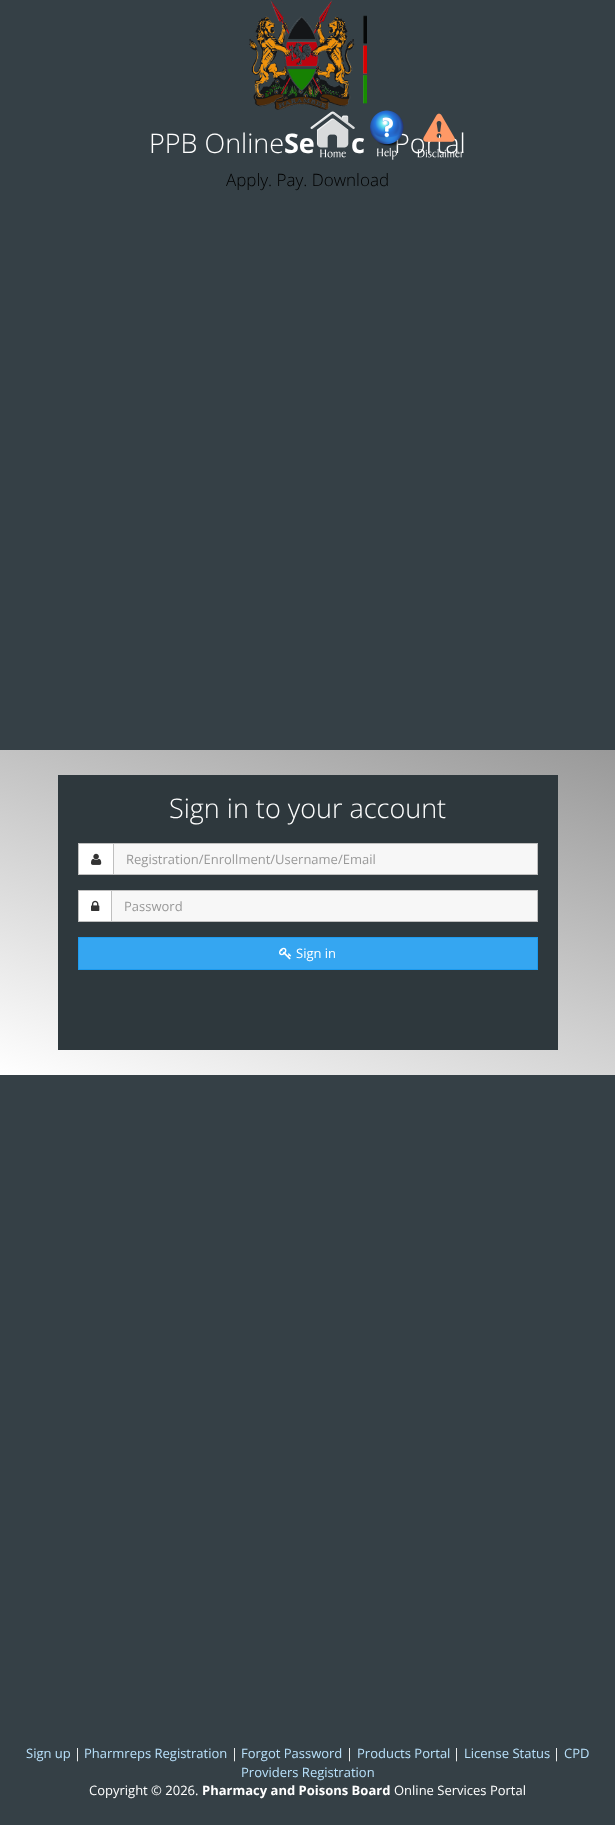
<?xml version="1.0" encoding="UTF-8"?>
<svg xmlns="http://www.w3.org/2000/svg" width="615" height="1825">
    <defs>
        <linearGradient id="g1" gradientUnits="userSpaceOnUse" x1="219" y1="1155" x2="396" y2="670"><stop offset="0" stop-color="#FFFFFF"/><stop offset="1" stop-color="#999999"/></linearGradient>
    </defs>
    <rect width="100%" height="100%" fill="#354046"/>
    <image x="249" y="0" width="118" height="110" href="img_01.png"/>
    <text x="284" y="153" font-family="Open Sans" font-size="27" font-weight="700" fill="#FFFFFF">Se</text>
    <text x="351" y="153" font-family="Open Sans" font-size="27" font-weight="700" fill="#FFFFFF">c</text>
    <image x="310" y="111" width="45" height="47" href="img_02.png"/>
    <text x="394" y="153" font-family="Open Sans" font-size="27" font-weight="300" fill="#FFFFFF">Portal</text>
    <image x="370" y="110" width="34" height="50" href="img_03.png"/>
    <image x="417" y="113" width="47" height="45" href="img_04.png"/>
    <text x="149" y="153" font-family="Open Sans" font-size="27" font-weight="300" fill="#FFFFFF">PPB Online</text>
    <text x="226" y="186" font-family="Open Sans" font-size="17" font-weight="300" fill="#000000">Apply. Pay. Download</text>
    <rect x="0" y="750" width="615" height="325" fill="url(#g1)"/>
    <rect x="58" y="775" width="500" height="275" fill="#2E383D"/>
    <text x="169" y="818" font-family="Open Sans" font-size="27" font-weight="300" fill="#FFFFFF">Sign in to your account</text>
    <rect x="79" y="844" width="34" height="30" fill="#FFFFFF"/>
    <rect x="78" y="843" width="35" height="1" fill="#BFBFBF"/>
    <rect x="78" y="874" width="35" height="1" fill="#BFBFBF"/>
    <rect x="78" y="843" width="1" height="32" fill="#BFBFBF"/>
    <image x="91" y="853" width="11" height="12" href="img_05.png"/>
    <rect x="113.5" y="843.5" width="424" height="31" fill="#F7F7F7" stroke="#BFBFBF"/>
    <text x="126" y="864" font-family="Open Sans" font-size="13" fill="#999999">Registration/Enrollment/Username/Email</text>
    <rect x="79" y="891" width="32" height="30" fill="#FFFFFF"/>
    <rect x="78" y="890" width="33" height="1" fill="#BFBFBF"/>
    <rect x="78" y="921" width="33" height="1" fill="#BFBFBF"/>
    <rect x="78" y="890" width="1" height="32" fill="#BFBFBF"/>
    <image x="91" y="900" width="9" height="11" href="img_06.png"/>
    <rect x="111.5" y="890.5" width="426" height="31" fill="#F7F7F7" stroke="#BFBFBF"/>
    <text x="124" y="911" font-family="Open Sans" font-size="13" fill="#999999">Password</text>
    <rect x="78.5" y="937.5" width="459" height="32" fill="#35A6F1" stroke="#1D9BEF"/>
    <image x="279" y="947" width="13" height="13" href="img_07.png"/>
    <text x="296" y="958" font-family="Open Sans" font-size="13" fill="#FFFFFF">Sign in</text>
    <text x="26" y="1758" font-family="Open Sans" font-size="13" fill="#B8E0FA">Sign up</text>
    <text x="74" y="1758" font-family="Open Sans" font-size="13" fill="#FFFFFF">|</text>
    <text x="84" y="1758" font-family="Open Sans" font-size="13" fill="#B8E0FA">Pharmreps Registration</text>
    <text x="231" y="1758" font-family="Open Sans" font-size="13" fill="#FFFFFF">|</text>
    <text x="241" y="1758" font-family="Open Sans" font-size="13" fill="#B8E0FA">Forgot Password</text>
    <text x="346" y="1758" font-family="Open Sans" font-size="13" fill="#FFFFFF">|</text>
    <text x="357" y="1758" font-family="Open Sans" font-size="13" fill="#B8E0FA">Products Portal</text>
    <text x="453" y="1758" font-family="Open Sans" font-size="13" fill="#FFFFFF">|</text>
    <text x="464" y="1758" font-family="Open Sans" font-size="13" fill="#B8E0FA">License Status</text>
    <text x="553" y="1758" font-family="Open Sans" font-size="13" fill="#FFFFFF">|</text>
    <text x="564" y="1758" font-family="Open Sans" font-size="13" fill="#B8E0FA">CPD</text>
    <text x="241" y="1777" font-family="Open Sans" font-size="13" fill="#B8E0FA">Providers Registration</text>
    <text x="89" y="1795" font-family="Open Sans" font-size="13" fill="#FFFFFF">Copyright © 2026.</text>
    <text x="202" y="1795" font-family="Open Sans" font-size="13" font-weight="700" fill="#FFFFFF">Pharmacy and Poisons Board</text>
    <text x="394" y="1795" font-family="Open Sans" font-size="13" fill="#FFFFFF">Online Services Portal</text>
</svg>
